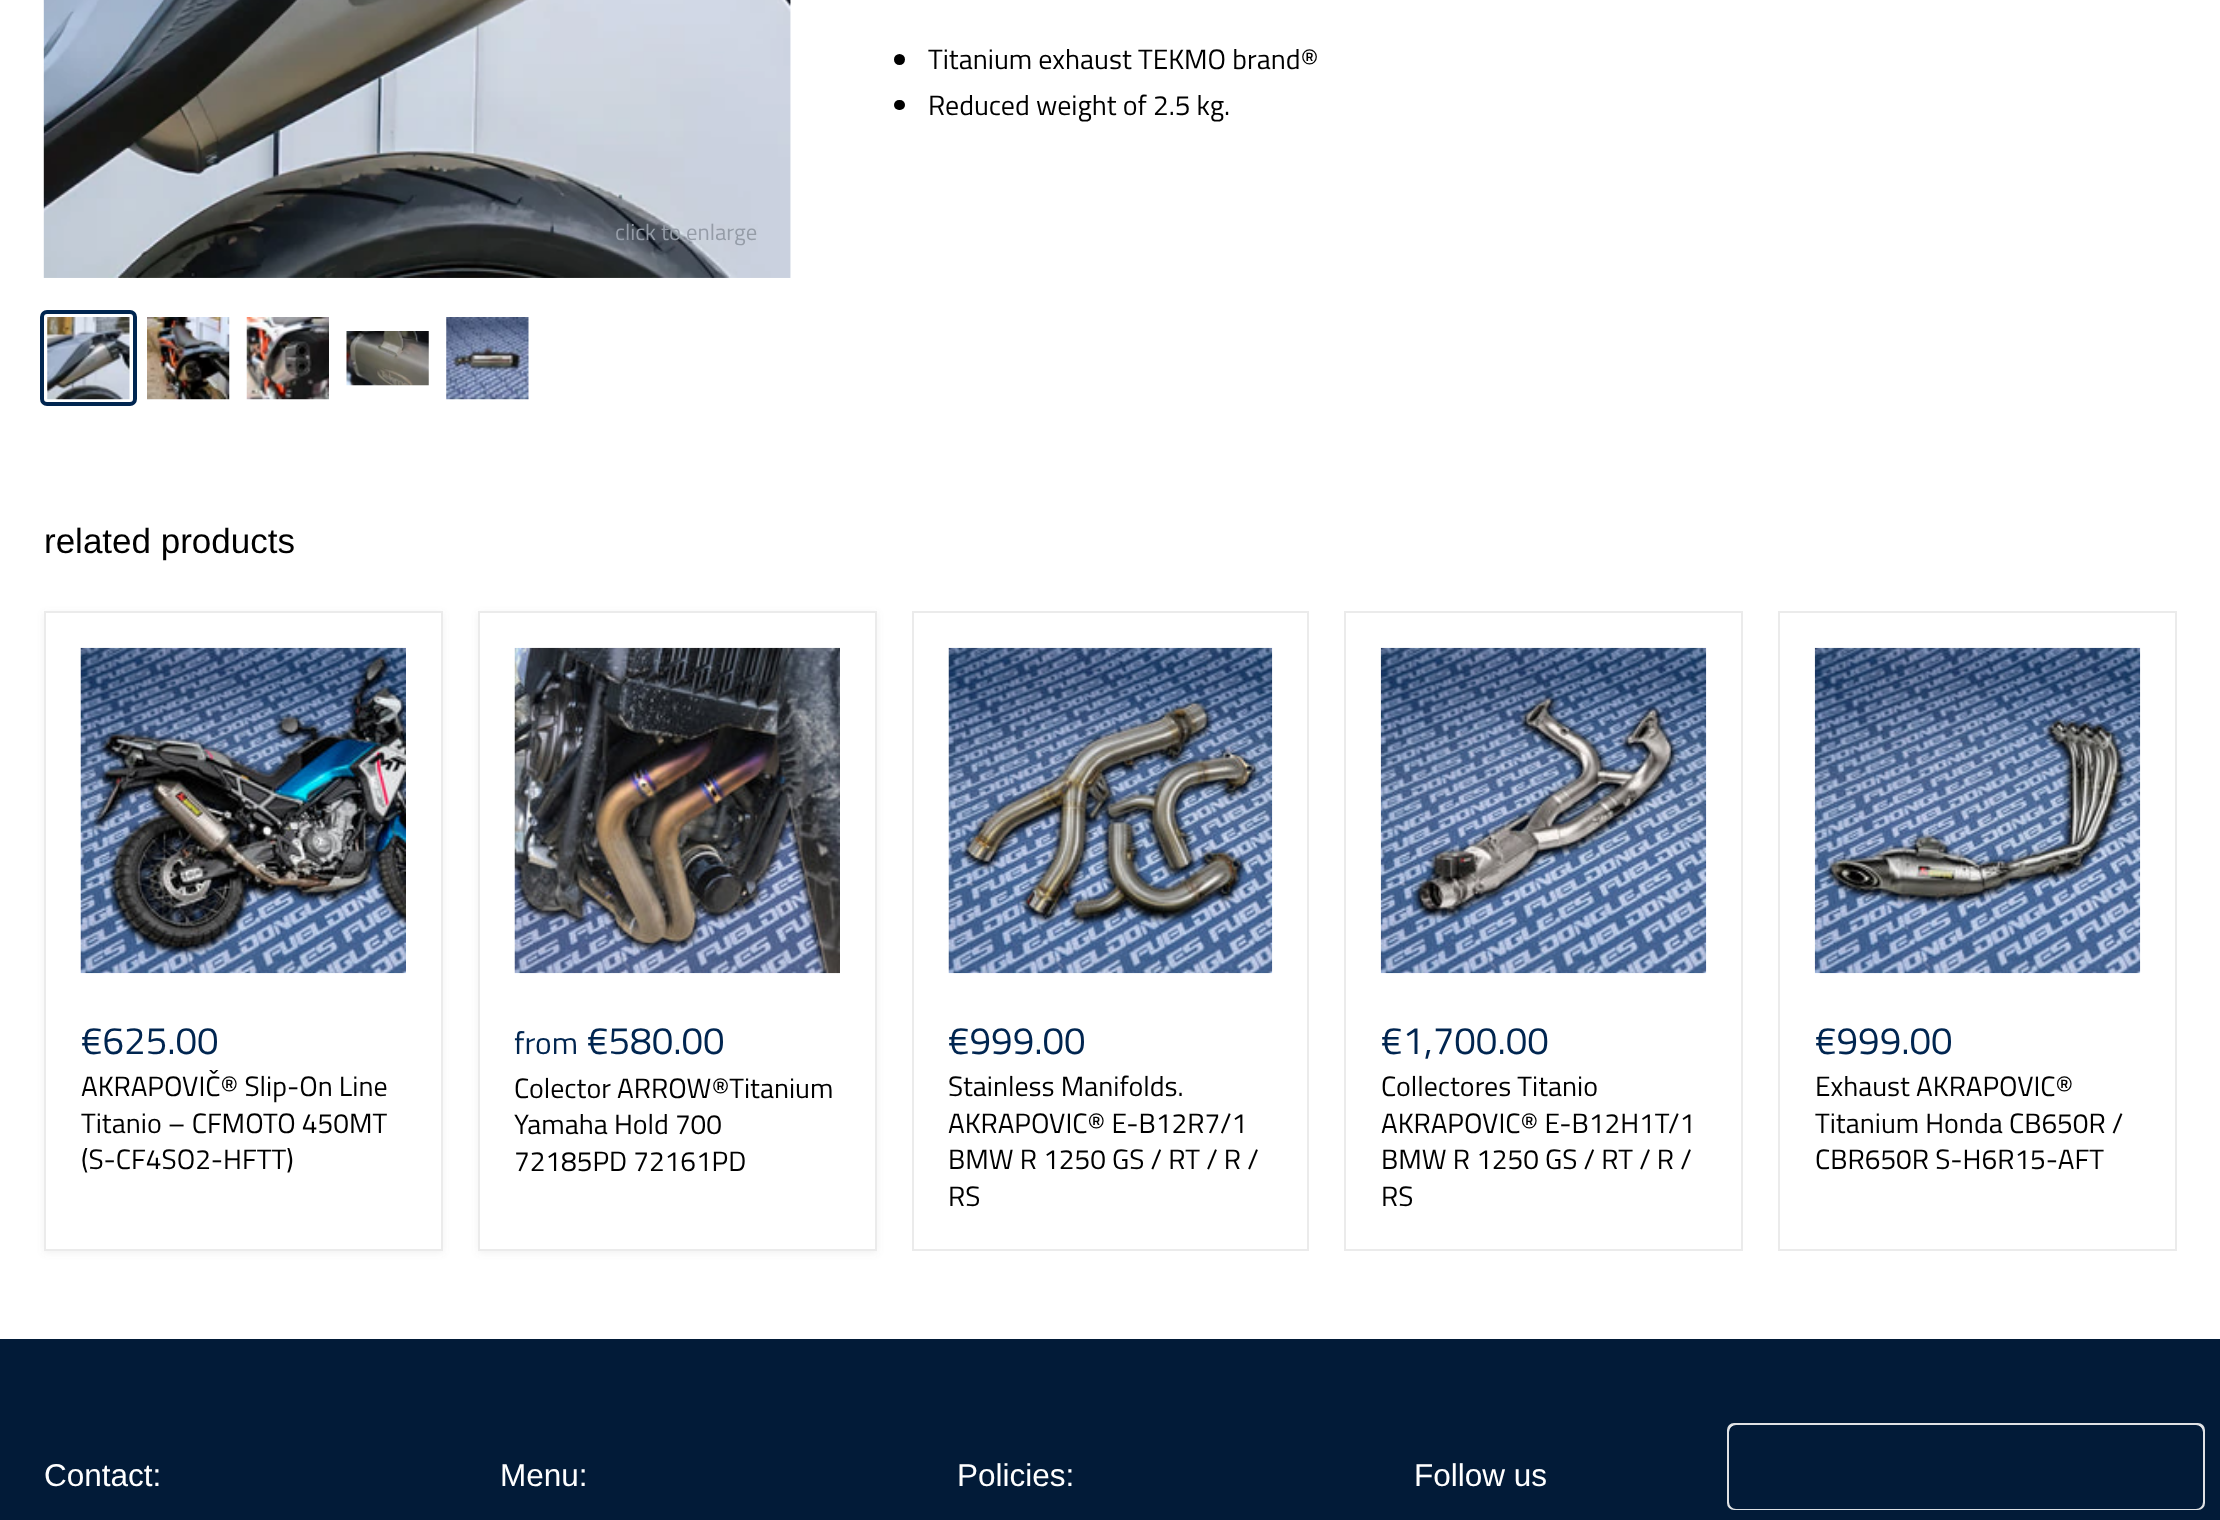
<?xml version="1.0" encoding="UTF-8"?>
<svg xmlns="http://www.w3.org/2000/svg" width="2220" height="1520">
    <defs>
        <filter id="blur1" x="-50%" y="-200%" width="200%" height="500%"><feGaussianBlur stdDeviation="3.5"/></filter>
    </defs>
    <rect width="100%" height="100%" fill="#FFFFFF"/>
    <circle cx="899.5" cy="59.5" r="5.5" fill="#000000"/>
    <text x="928" y="69" font-family="Titillium Web" font-size="28" fill="#000000">Titanium exhaust TEKMO brand®</text>
    <rect x="894" y="100" width="11" height="10" rx="5" fill="#000000"/>
    <text x="928" y="115" font-family="Titillium Web" font-size="28" fill="#000000">Reduced weight of 2.5 kg.</text>
    <image x="43" y="0" width="748" height="278" href="img_01.png"/>
    <text x="615" y="240" font-family="Titillium Web" font-size="22.75" fill="#959CA7">click to enlarge</text>
    <rect x="42" y="312" width="93" height="92" rx="5" fill="none" stroke="#002550" stroke-width="4"/>
    <image x="47" y="317" width="83" height="83" href="img_02.png"/>
    <image x="147" y="317" width="83" height="83" href="img_03.png"/>
    <image x="246" y="317" width="83" height="83" href="img_04.png"/>
    <image x="346" y="331" width="83" height="55" href="img_05.png"/>
    <image x="446" y="317" width="83" height="83" href="img_06.png"/>
    <text x="44" y="553" font-family="Liberation Sans" font-size="35" fill="#000000">related products</text>
    <rect x="44" y="613" width="399" height="640" fill="#7F7F7F" fill-opacity="0.11" filter="url(#blur1)"/>
    <rect x="45" y="612" width="397" height="638" fill="#FFFFFF" stroke="#EBEBEB" stroke-width="2"/>
    <image x="80" y="647" width="326" height="327" href="img_07.png"/>
    <text x="81" y="1054" font-family="Titillium Web" font-size="38.5" fill="#002550">€625.00</text>
    <text font-family="Titillium Web" font-size="28" fill="#000000">
        <tspan x="81" y="1096">AKRAPOVIČ® Slip-On Line</tspan>
        <tspan x="81" y="1133">Titanio – CFMOTO 450MT</tspan>
        <tspan x="81" y="1169">(S-CF4SO2-HFTT)</tspan>
    </text>
    <rect x="478" y="613" width="399" height="640" fill="#7F7F7F" fill-opacity="0.11" filter="url(#blur1)"/>
    <rect x="479" y="612" width="397" height="638" fill="#FFFFFF" stroke="#EBEBEB" stroke-width="2"/>
    <image x="514" y="647" width="326" height="327" href="img_08.png"/>
    <text x="514" y="1054" font-family="Titillium Web" font-size="31.5" fill="#002550">from</text>
    <text x="587" y="1054" font-family="Titillium Web" font-size="38.5" fill="#002550">€580.00</text>
    <text font-family="Titillium Web" font-size="28" fill="#000000">
        <tspan x="514" y="1098">Colector ARROW®Titanium</tspan>
        <tspan x="514" y="1134">Yamaha Hold 700</tspan>
        <tspan x="514" y="1171">72185PD 72161PD</tspan>
    </text>
    <rect x="913" y="612" width="395" height="638" fill="none" stroke="#EBEBEB" stroke-width="2"/>
    <image x="948" y="647" width="325" height="327" href="img_09.png"/>
    <text x="948" y="1054" font-family="Titillium Web" font-size="38.5" fill="#002550">€999.00</text>
    <text font-family="Titillium Web" font-size="28" fill="#000000">
        <tspan x="948" y="1096">Stainless Manifolds.</tspan>
        <tspan x="948" y="1133">AKRAPOVIC® E-B12R7/1</tspan>
        <tspan x="948" y="1169">BMW R 1250 GS / RT / R /</tspan>
        <tspan x="948" y="1206">RS</tspan>
    </text>
    <rect x="1345" y="612" width="397" height="638" fill="none" stroke="#EBEBEB" stroke-width="2"/>
    <image x="1380" y="647" width="327" height="327" href="img_10.png"/>
    <text x="1381" y="1054" font-family="Titillium Web" font-size="38.5" fill="#002550">€1,700.00</text>
    <text font-family="Titillium Web" font-size="28" fill="#000000">
        <tspan x="1381" y="1096">Collectores Titanio</tspan>
        <tspan x="1381" y="1133">AKRAPOVIC® E-B12H1T/1</tspan>
        <tspan x="1381" y="1169">BMW R 1250 GS / RT / R /</tspan>
        <tspan x="1381" y="1206">RS</tspan>
    </text>
    <rect x="1779" y="612" width="397" height="638" fill="none" stroke="#EBEBEB" stroke-width="2"/>
    <image x="1814" y="647" width="327" height="327" href="img_11.png"/>
    <text x="1815" y="1054" font-family="Titillium Web" font-size="38.5" fill="#002550">€999.00</text>
    <text font-family="Titillium Web" font-size="28" fill="#000000">
        <tspan x="1815" y="1096">Exhaust AKRAPOVIC®</tspan>
        <tspan x="1815" y="1133">Titanium Honda CB650R /</tspan>
        <tspan x="1815" y="1169">CBR650R S-H6R15-AFT</tspan>
    </text>
    <rect x="0" y="1339" width="2220" height="181" fill="#021B38"/>
    <text x="44" y="1486" font-family="Liberation Sans" font-size="31.5" fill="#FFFFFF">Contact:</text>
    <text x="500" y="1486" font-family="Liberation Sans" font-size="31.5" fill="#FFFFFF">Menu:</text>
    <text x="957" y="1486" font-family="Liberation Sans" font-size="31.5" fill="#FFFFFF">Policies:</text>
    <text x="1414" y="1486" font-family="Liberation Sans" font-size="31.5" fill="#FFFFFF">Follow us</text>
    <rect x="1728" y="1424" width="476" height="85" rx="6" fill="#FFFFFF" stroke="#E0E2E4" stroke-width="2"/>
    <rect x="1729" y="1425" width="474" height="84" rx="7" fill="#021B38"/>
</svg>
